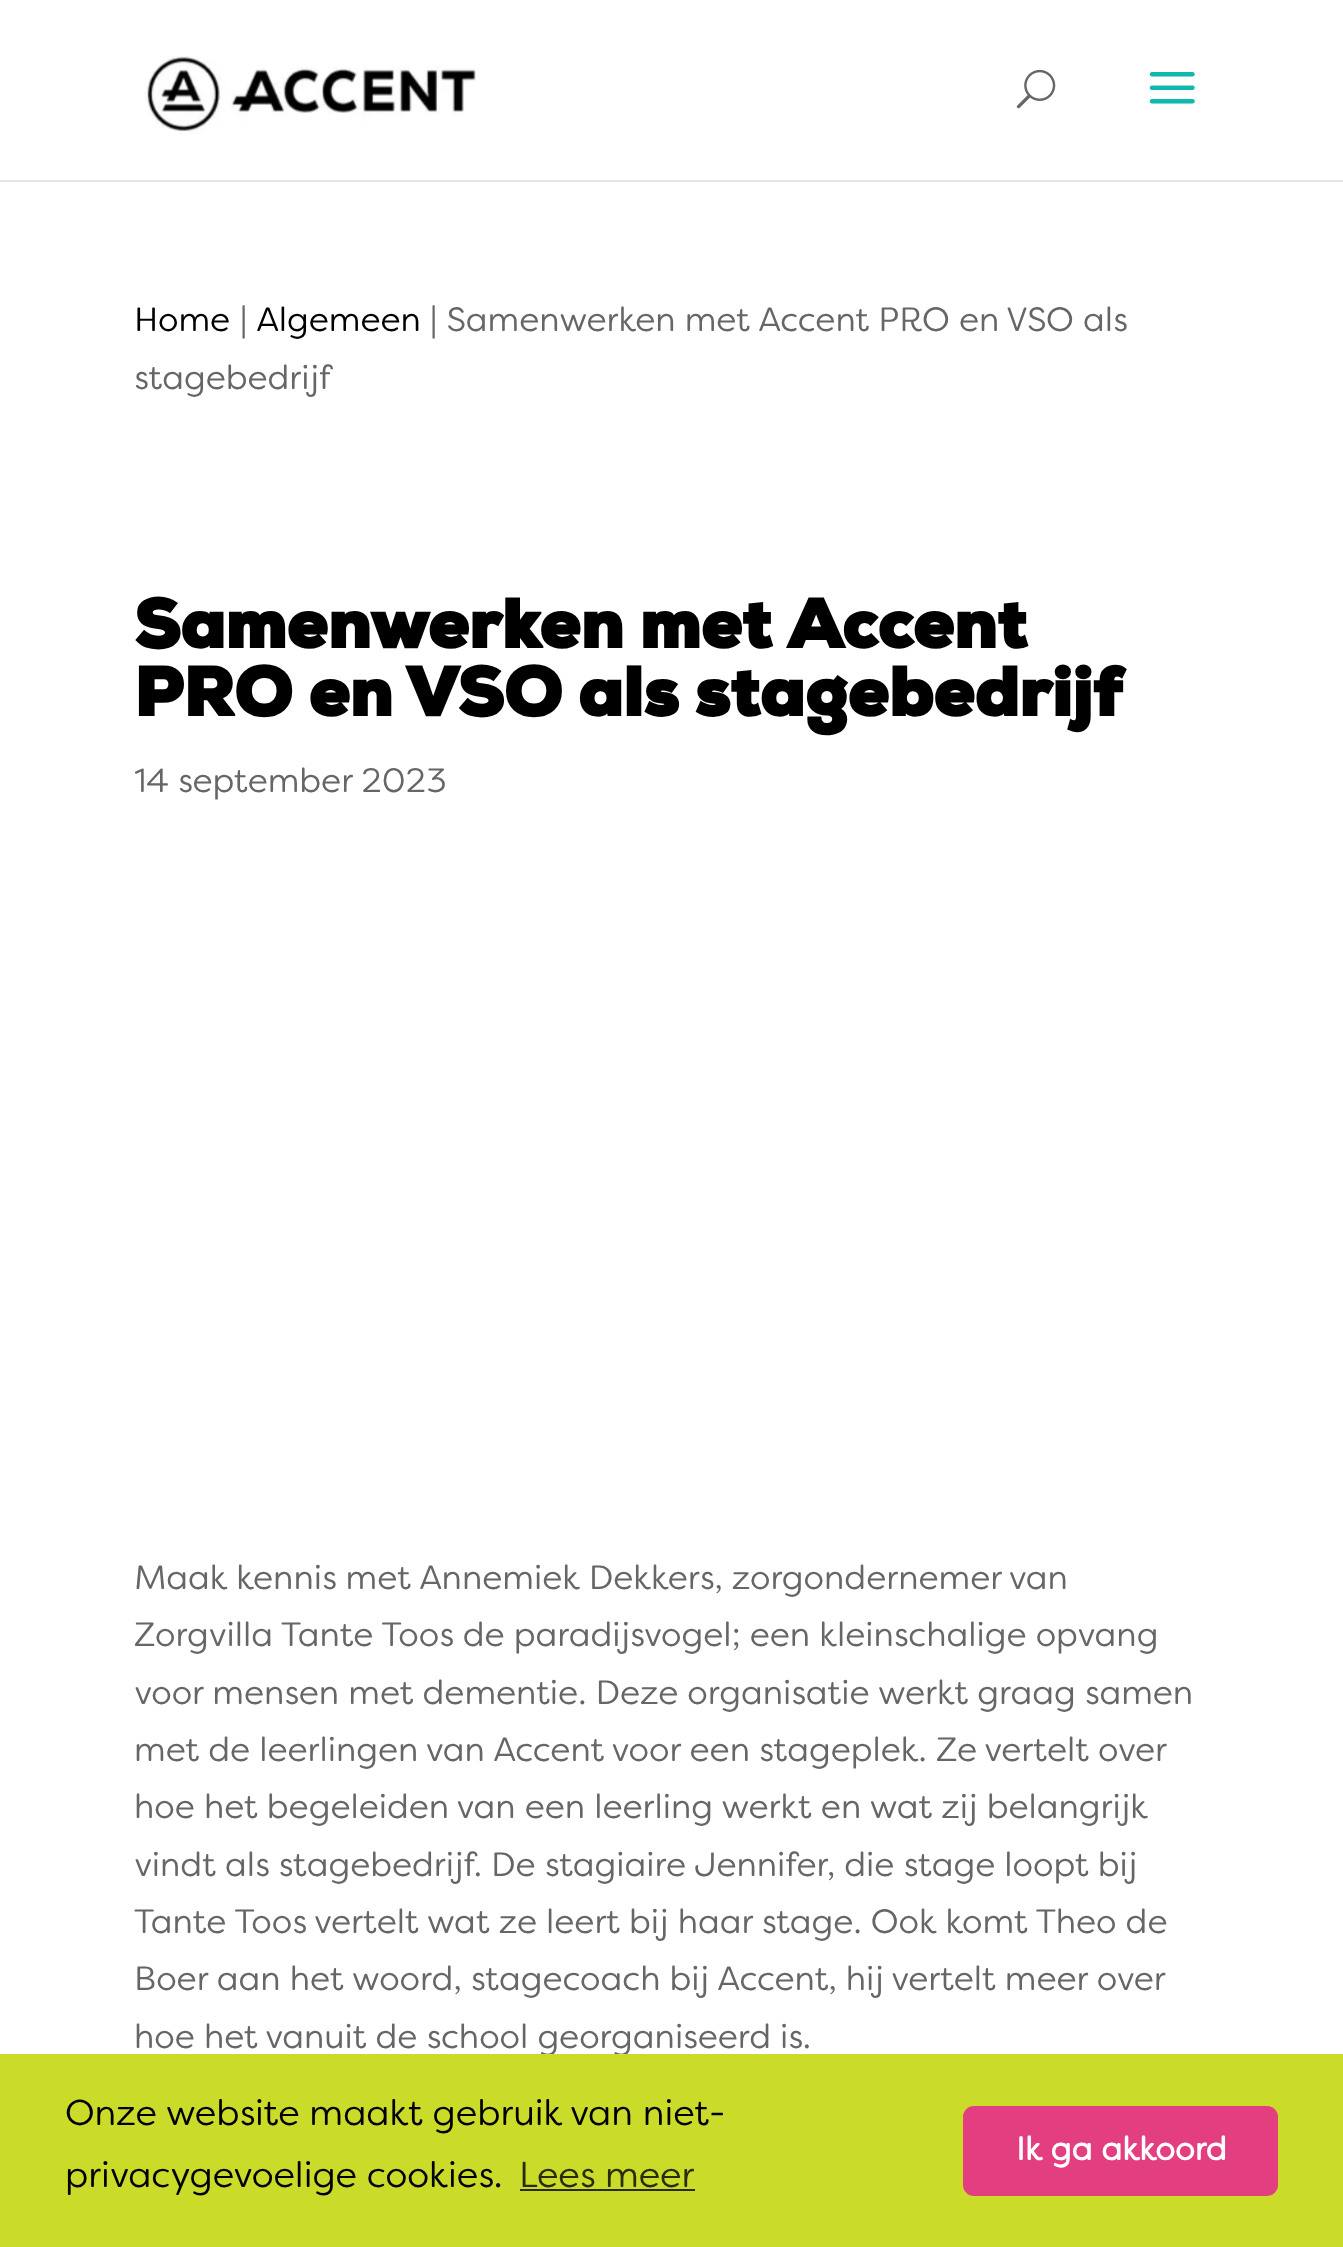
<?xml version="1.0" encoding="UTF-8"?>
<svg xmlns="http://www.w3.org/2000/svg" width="1343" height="2247">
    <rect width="100%" height="100%" fill="#FFFFFF"/>
    <rect x="0" y="180" width="1343" height="2" fill="#E6E6E6"/>
    <image x="144" y="56" width="332" height="78" href="img_01.png"/>
    <image x="1016" y="69" width="40" height="40" href="img_02.png"/>
    <image x="1149" y="72" width="46" height="32" href="img_03.png"/>
    <text x="134" y="331" font-family="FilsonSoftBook" font-size="33.75" fill="#000000">Home</text>
    <text x="240" y="331" font-family="FilsonSoftBook" font-size="33.75" fill="#666666">|</text>
    <text x="256" y="331" font-family="FilsonSoftBook" font-size="33.75" fill="#000000">Algemeen</text>
    <text x="430" y="331" font-family="FilsonSoftBook" font-size="33.75" fill="#666666">| Samenwerken met Accent PRO en VSO als</text>
    <text x="134" y="389" font-family="FilsonSoftBook" font-size="33.75" fill="#666666">stagebedrijf</text>
    <text font-family="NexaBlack" font-size="67.5" font-weight="700" fill="#000000">
        <tspan x="134" y="648">Samenwerken met Accent</tspan>
        <tspan x="134" y="716">PRO en VSO als stagebedrijf</tspan>
    </text>
    <text x="134" y="792" font-family="FilsonSoftBook" font-size="33.75" fill="#666666">14 september 2023</text>
    <text font-family="FilsonSoftBook" font-size="33.75" fill="#666666">
        <tspan x="134" y="1589">Maak kennis met Annemiek Dekkers, zorgondernemer van</tspan>
        <tspan x="134" y="1646">Zorgvilla Tante Toos de paradijsvogel; een kleinschalige opvang</tspan>
        <tspan x="134" y="1704">voor mensen met dementie. Deze organisatie werkt graag samen</tspan>
        <tspan x="134" y="1761">met de leerlingen van Accent voor een stageplek. Ze vertelt over</tspan>
        <tspan x="134" y="1818">hoe het begeleiden van een leerling werkt en wat zij belangrijk</tspan>
        <tspan x="134" y="1876">vindt als stagebedrijf. De stagiaire Jennifer, die stage loopt bij</tspan>
        <tspan x="134" y="1933">Tante Toos vertelt wat ze leert bij haar stage. Ook komt Theo de</tspan>
        <tspan x="134" y="1990">Boer aan het woord, stagecoach bij Accent, hij vertelt meer over</tspan>
        <tspan x="134" y="2048">hoe het vanuit de school georganiseerd is.</tspan>
    </text>
    <rect x="0" y="2054" width="1343" height="193" fill="#CBDB2A"/>
    <text font-family="FilsonSoftBook" font-size="36" fill="#000000">
        <tspan x="65" y="2125">Onze website maakt gebruik van niet-</tspan>
        <tspan x="65" y="2187">privacygevoelige cookies.</tspan>
    </text>
    <text x="519" y="2187" font-family="FilsonSoftBook" font-size="36" fill="#292C08">Lees meer</text>
    <rect x="520" y="2189" width="175" height="2" fill="#292C08"/>
    <rect x="963" y="2106" width="315" height="90" rx="11" fill="#E33E7F"/>
    <text x="1016" y="2160" font-family="FilsonSoftBook" font-size="32.5" font-weight="700" fill="#FFFFFF">Ik ga akkoord</text>
</svg>
